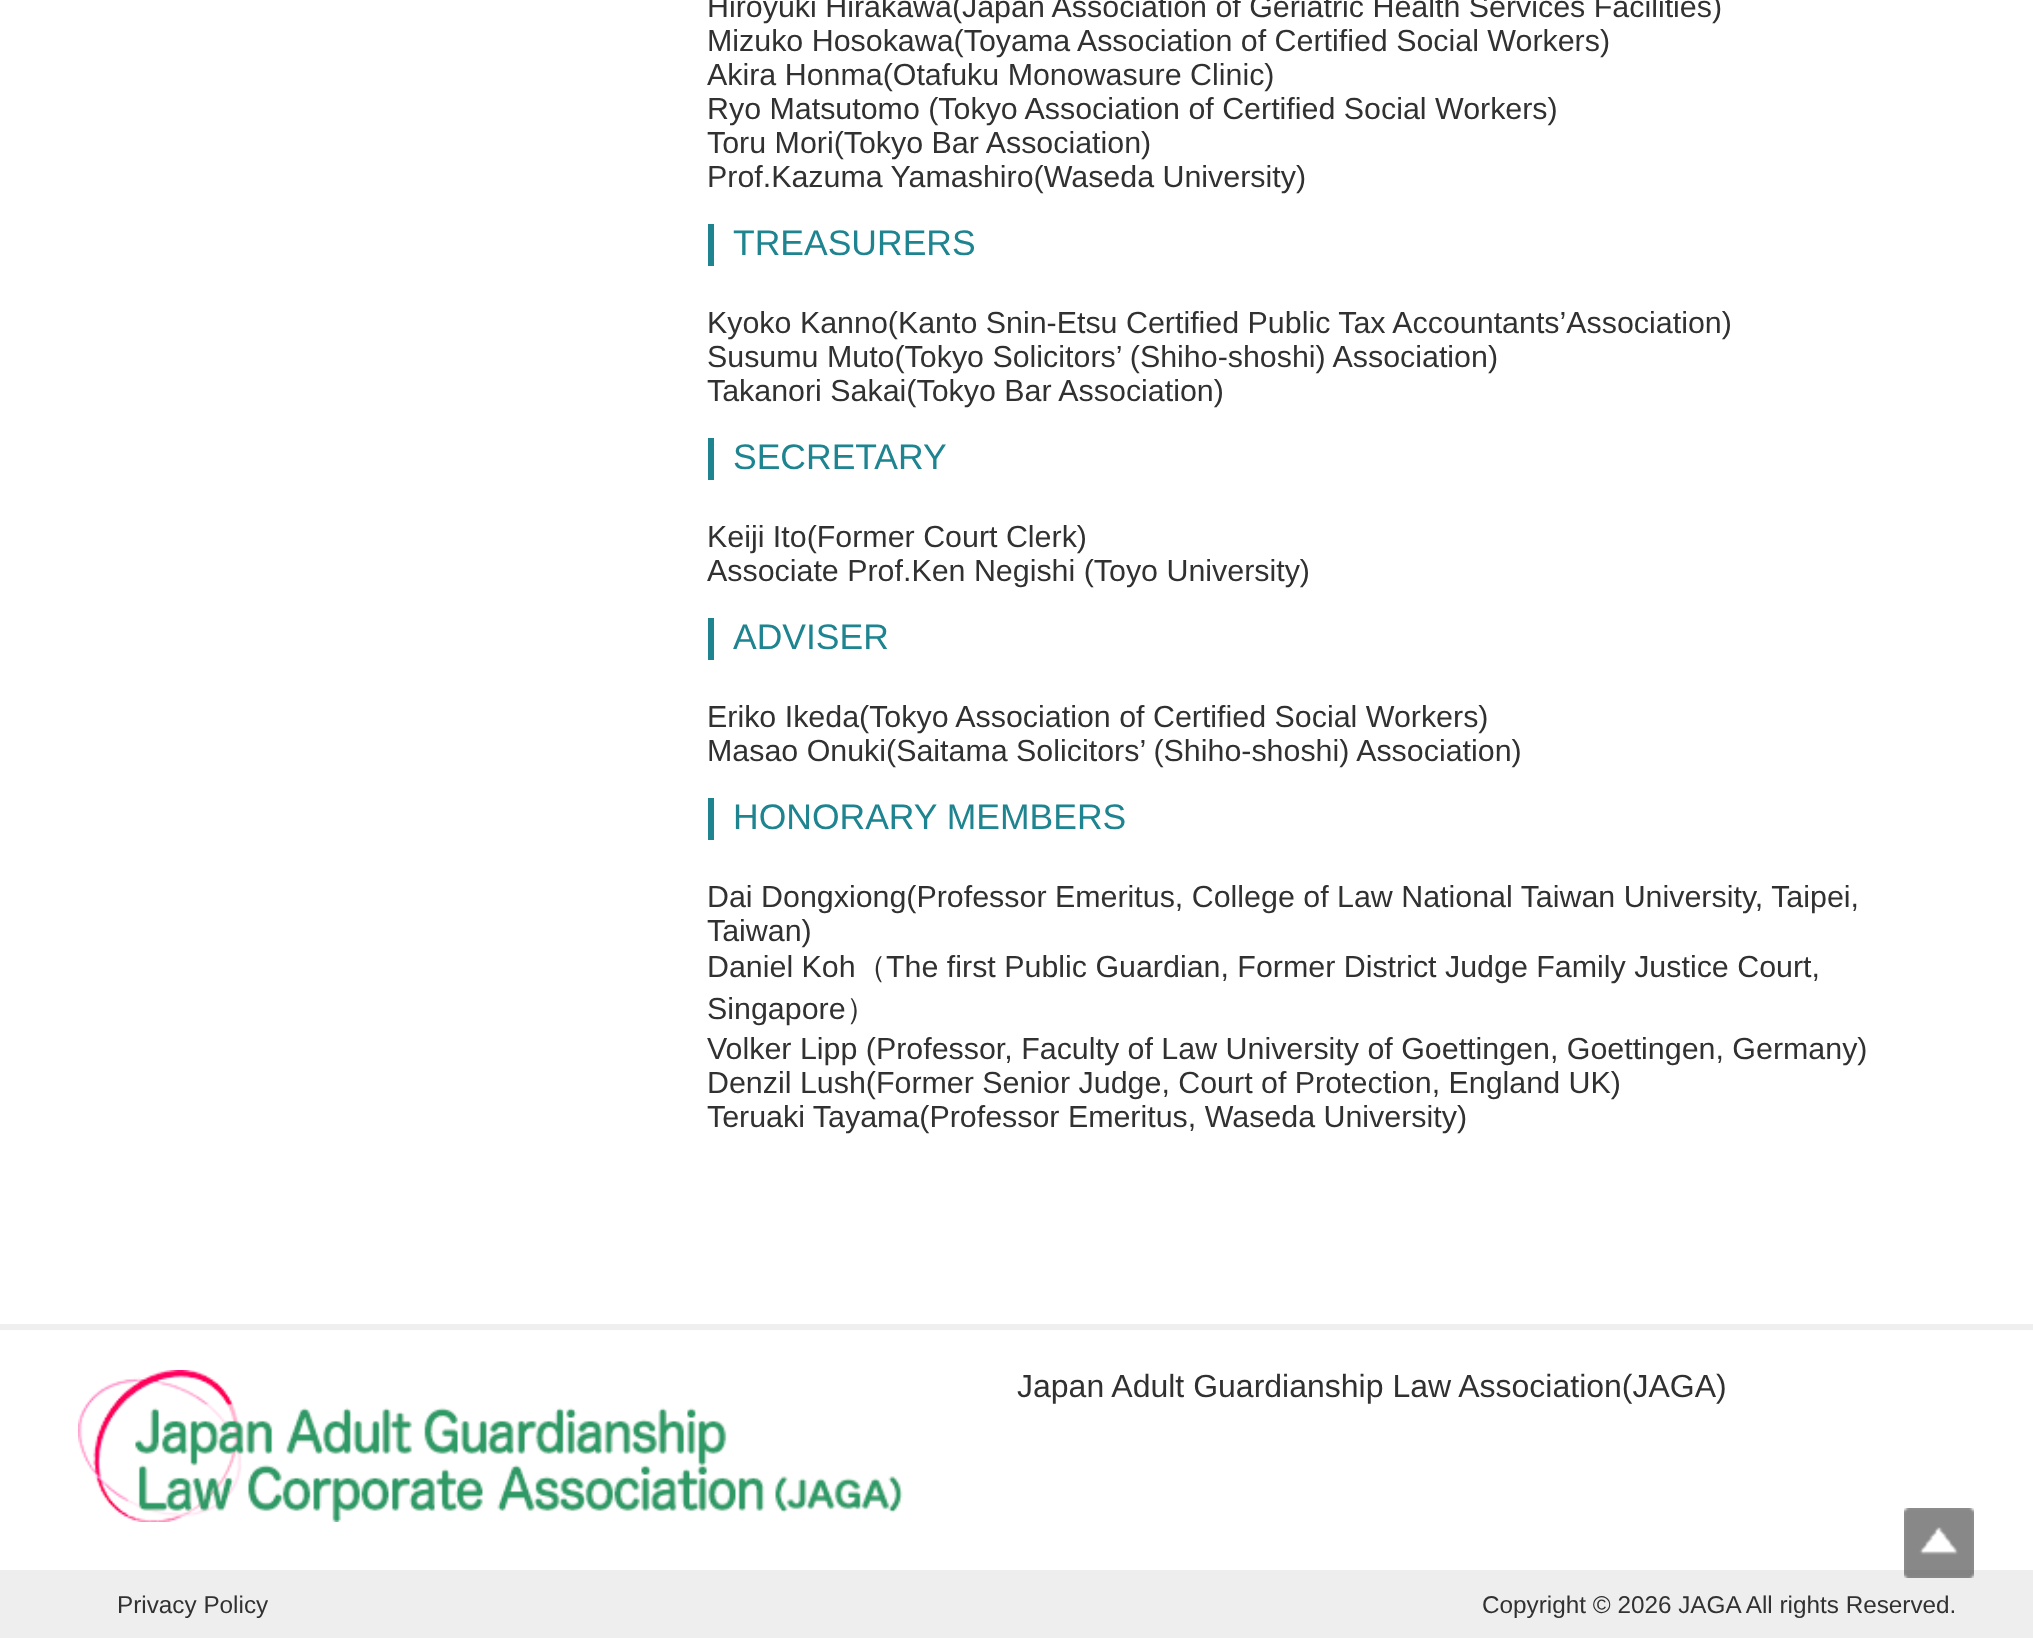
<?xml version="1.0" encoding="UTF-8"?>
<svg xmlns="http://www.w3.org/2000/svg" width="2033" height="1638">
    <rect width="100%" height="100%" fill="#FFFFFF"/>
    <text font-family="Liberation Sans" font-size="30.4" fill="#313131">
        <tspan x="707" y="17">Hiroyuki Hirakawa(Japan Association of Geriatric Health Services Facilities)</tspan>
        <tspan x="707" y="51">Mizuko Hosokawa(Toyama Association of Certified Social Workers)</tspan>
        <tspan x="707" y="85">Akira Honma(Otafuku Monowasure Clinic)</tspan>
        <tspan x="707" y="119">Ryo Matsutomo (Tokyo Association of Certified Social Workers)</tspan>
        <tspan x="707" y="153">Toru Mori(Tokyo Bar Association)</tspan>
        <tspan x="707" y="187">Prof.Kazuma Yamashiro(Waseda University)</tspan>
    </text>
    <rect x="708" y="224" width="6" height="42" fill="#1E8490"/>
    <text x="733" y="255" font-family="Liberation Sans" font-size="35.5" fill="#1E8490">TREASURERS</text>
    <text font-family="Liberation Sans" font-size="30.4" fill="#313131">
        <tspan x="707" y="333">Kyoko Kanno(Kanto Snin-Etsu Certified Public Tax Accountants’Association)</tspan>
        <tspan x="707" y="367">Susumu Muto(Tokyo Solicitors’ (Shiho-shoshi) Association)</tspan>
        <tspan x="707" y="401">Takanori Sakai(Tokyo Bar Association)</tspan>
    </text>
    <rect x="708" y="438" width="6" height="42" fill="#1E8490"/>
    <text x="733" y="469" font-family="Liberation Sans" font-size="35.5" fill="#1E8490">SECRETARY</text>
    <text font-family="Liberation Sans" font-size="30.4" fill="#313131">
        <tspan x="707" y="547">Keiji Ito(Former Court Clerk)</tspan>
        <tspan x="707" y="581">Associate Prof.Ken Negishi (Toyo University)</tspan>
    </text>
    <rect x="708" y="618" width="6" height="42" fill="#1E8490"/>
    <text x="733" y="649" font-family="Liberation Sans" font-size="35.5" fill="#1E8490">ADVISER</text>
    <text font-family="Liberation Sans" font-size="30.4" fill="#313131">
        <tspan x="707" y="727">Eriko Ikeda(Tokyo Association of Certified Social Workers)</tspan>
        <tspan x="707" y="761">Masao Onuki(Saitama Solicitors’ (Shiho-shoshi) Association)</tspan>
    </text>
    <rect x="708" y="798" width="6" height="42" fill="#1E8490"/>
    <text x="733" y="829" font-family="Liberation Sans" font-size="35.5" fill="#1E8490">HONORARY MEMBERS</text>
    <text font-family="Liberation Sans" font-size="30.4" fill="#313131">
        <tspan x="707" y="907">Dai Dongxiong(Professor Emeritus, College of Law National Taiwan University, Taipei,</tspan>
        <tspan x="707" y="941">Taiwan)</tspan>
        <tspan x="707" y="977">Daniel Koh</tspan>
    </text>
    <text x="856" y="977" font-family="WenQuanYi Zen Hei" font-size="30.4" font-weight="500" fill="#313131">（</text>
    <text x="886" y="977" font-family="Liberation Sans" font-size="30.4" fill="#313131">The first Public Guardian, Former District Judge Family Justice Court,</text>
    <text x="707" y="1019" font-family="Liberation Sans" font-size="30.4" fill="#313131">Singapore</text>
    <text x="846" y="1019" font-family="WenQuanYi Zen Hei" font-size="30.4" font-weight="500" fill="#313131">）</text>
    <text font-family="Liberation Sans" font-size="30.4" fill="#313131">
        <tspan x="707" y="1059">Volker Lipp (Professor, Faculty of Law University of Goettingen, Goettingen, Germany)</tspan>
        <tspan x="707" y="1093">Denzil Lush(Former Senior Judge, Court of Protection, England UK)</tspan>
        <tspan x="707" y="1127">Teruaki Tayama(Professor Emeritus, Waseda University)</tspan>
    </text>
    <rect x="0" y="1324" width="2033" height="6" fill="#EFEFEF"/>
    <image x="78" y="1370" width="825" height="152" href="img_01.png"/>
    <text x="1017" y="1397" font-family="Liberation Sans" font-size="32" fill="#313131">Japan Adult Guardianship Law Association(JAGA)</text>
    <rect x="0" y="1570" width="2033" height="68" fill="#EEEEEE"/>
    <text x="117" y="1613" font-family="Liberation Sans" font-size="24.3" fill="#313131">Privacy Policy</text>
    <text x="1482" y="1613" font-family="Liberation Sans" font-size="24.3" fill="#313131">Copyright © 2026 JAGA All rights Reserved.</text>
    <image x="1904" y="1508" width="70" height="70" href="img_02.png"/>
</svg>
